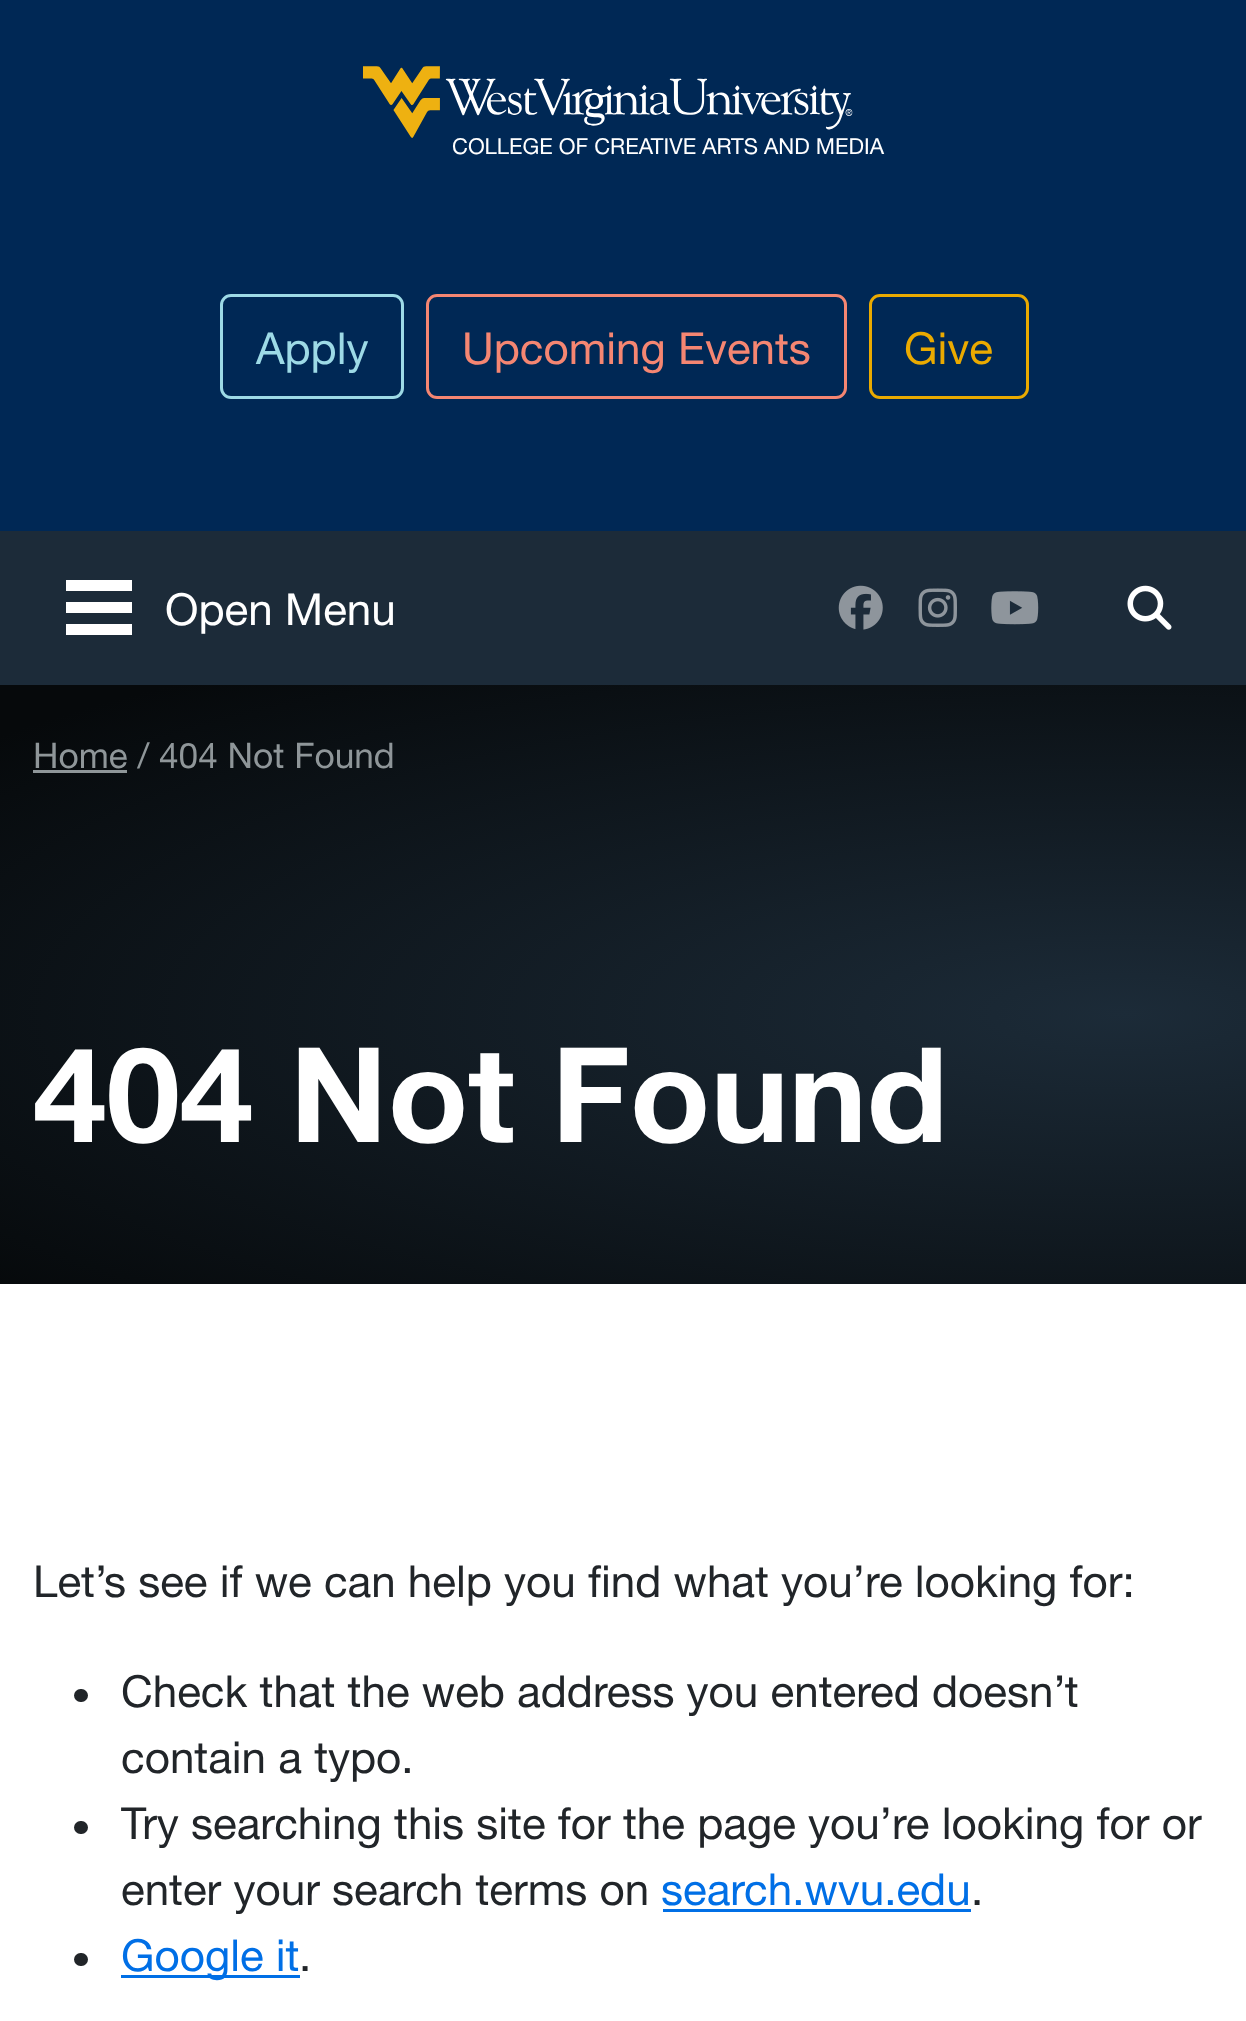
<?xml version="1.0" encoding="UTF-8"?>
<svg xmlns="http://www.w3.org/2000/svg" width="1246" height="2021">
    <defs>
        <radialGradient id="g1" gradientUnits="userSpaceOnUse" cx="0" cy="0" r="1" gradientTransform="matrix(1472 0 0 432 1124 1014)"><stop offset="0" stop-color="#1C2B38"/><stop offset="1" stop-color="#06090B"/></radialGradient>
    </defs>
    <rect width="100%" height="100%" fill="#FFFFFF"/>
    <rect x="0" y="0" width="1246" height="531" fill="#002855"/>
    <image x="363" y="66" width="490" height="72" href="img_01.png"/>
    <text x="452" y="154" font-family="'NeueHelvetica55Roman'" font-size="22" fill="#FFFFFF">COLLEGE OF CREATIVE ARTS AND MEDIA</text>
    <rect x="221.5" y="295.5" width="181" height="102" rx="9.5" fill="none" stroke="#9DDAE6" stroke-width="3"/>
    <text x="256" y="364" font-family="'NeueHelvetica55Roman'" font-size="44" fill="#9DDAE6">Apply</text>
    <rect x="427.5" y="295.5" width="418" height="102" rx="9.5" fill="none" stroke="#F58672" stroke-width="3"/>
    <text x="462" y="364" font-family="'NeueHelvetica55Roman'" font-size="44" fill="#F58672">Upcoming Events</text>
    <rect x="870.5" y="295.5" width="157" height="102" rx="9.5" fill="none" stroke="#EAAA00" stroke-width="3"/>
    <text x="904" y="364" font-family="'NeueHelvetica55Roman'" font-size="44" fill="#EAAA00">Give</text>
    <rect x="0" y="531" width="1246" height="154" fill="#1C2B39"/>
    <rect x="66" y="580" width="66" height="11" fill="#FFFFFF"/>
    <rect x="66" y="602" width="66" height="11" fill="#FFFFFF"/>
    <rect x="66" y="624" width="66" height="11" fill="#FFFFFF"/>
    <text x="165" y="625" font-family="'NeueHelvetica55Roman'" font-size="44" fill="#FFFFFF">Open Menu</text>
    <image x="838" y="585" width="45" height="45" href="img_02.png"/>
    <image x="918" y="588" width="39" height="39" href="img_03.png"/>
    <image x="991" y="591" width="48" height="34" href="img_04.png"/>
    <image x="1127" y="585" width="45" height="45" href="img_05.png"/>
    <rect x="0" y="685" width="1246" height="599" fill="url(#g1)"/>
    <text x="33" y="768" font-family="'NeueHelvetica55Roman'" font-size="35.25" fill="#8F9699">Home / 404 Not Found</text>
    <rect x="33" y="770" width="94" height="3" fill="#8F9699"/>
    <text x="33" y="1142" font-family="'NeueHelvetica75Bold'" font-size="132" font-weight="700" fill="#FFFFFF">404 Not Found</text>
    <text x="33" y="1597" font-family="'NeueHelvetica55Roman'" font-size="44" fill="#212529">Let’s see if we can help you find what you’re looking for:</text>
    <rect x="74" y="1689" width="14" height="13" rx="6.5" fill="#212529"/>
    <text font-family="'NeueHelvetica55Roman'" font-size="44" fill="#212529">
        <tspan x="121" y="1707">Check that the web address you entered doesn’t</tspan>
        <tspan x="121" y="1773">contain a typo.</tspan>
    </text>
    <rect x="74" y="1821" width="14" height="13" rx="6.5" fill="#212529"/>
    <text font-family="'NeueHelvetica55Roman'" font-size="44" fill="#212529">
        <tspan x="121" y="1839">Try searching this site for the page you’re looking for or</tspan>
        <tspan x="121" y="1905">enter your search terms on</tspan>
    </text>
    <text x="661" y="1905" font-family="'NeueHelvetica55Roman'" font-size="44" fill="#006FE6">search.wvu.edu</text>
    <rect x="663" y="1909" width="308" height="3" fill="#006FE6"/>
    <text x="971" y="1905" font-family="'NeueHelvetica55Roman'" font-size="44" fill="#212529">.</text>
    <rect x="74" y="1953" width="14" height="13" rx="6.5" fill="#212529"/>
    <rect x="121" y="1975" width="179" height="3" fill="#006FE6"/>
    <text x="121" y="1971" font-family="'NeueHelvetica55Roman'" font-size="44" fill="#006FE6">Google it</text>
    <text x="299" y="1971" font-family="'NeueHelvetica55Roman'" font-size="44" fill="#212529">.</text>
</svg>
